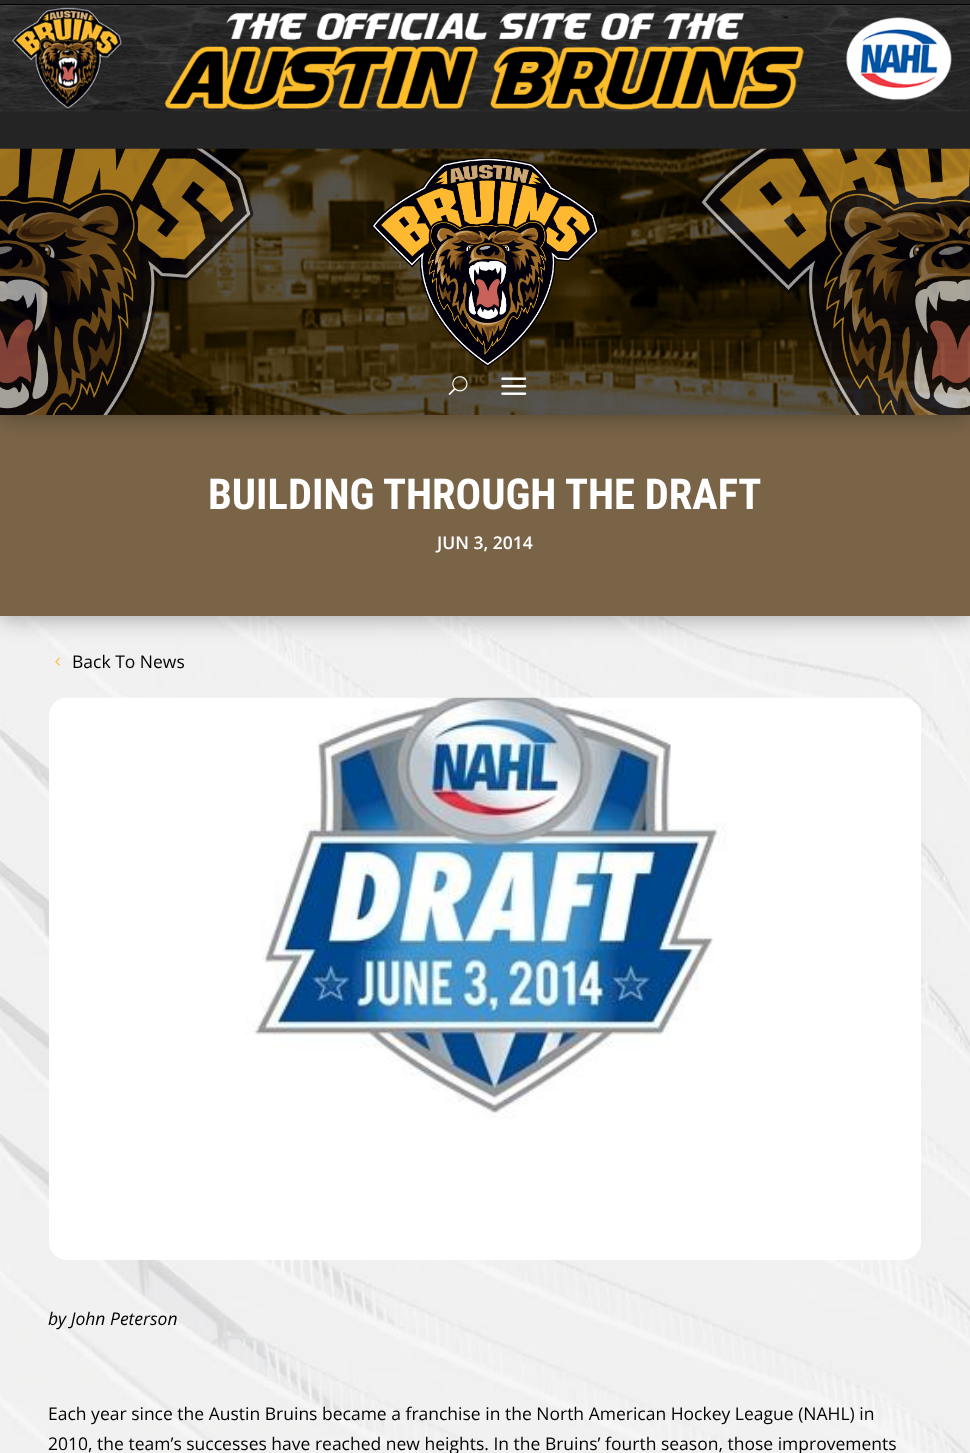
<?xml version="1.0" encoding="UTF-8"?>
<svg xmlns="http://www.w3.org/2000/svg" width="970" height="1453">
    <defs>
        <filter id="blur1" x="-50%" y="-200%" width="200%" height="500%"><feGaussianBlur stdDeviation="11"/></filter>
    </defs>
    <rect width="100%" height="100%" fill="#FFFFFF"/>
    <image x="969" y="616" width="1" height="837" href="img_01.png"/>
    <image x="0" y="616" width="970" height="837" href="img_07.png"/>
    <rect x="0" y="418" width="970" height="201" fill="#000000" fill-opacity="0.3" filter="url(#blur1)"/>
    <rect x="0" y="415" width="970" height="201" fill="#7A6448"/>
    <rect x="0" y="3" width="970" height="415" fill="#000000" fill-opacity="0.3" filter="url(#blur1)"/>
    <rect x="0" y="0" width="970" height="149" fill="#242424"/>
    <rect x="0" y="4" width="970" height="1" fill="#000000"/>
    <image x="0" y="5" width="970" height="107" href="img_02.png"/>
    <image x="0" y="148" width="970" height="267" href="img_03.png"/>
    <image x="371" y="157" width="228" height="209" href="img_04.png"/>
    <image x="448" y="376" width="20" height="19" href="img_05.png"/>
    <image x="501" y="377" width="26" height="18" href="img_06.png"/>
    <text x="208" y="509" font-family="Roboto Condensed" font-size="42.5" font-weight="700" fill="#FFFFFF">BUILDING THROUGH THE DRAFT</text>
    <text x="437" y="549" font-family="Open Sans" font-size="17.5" font-weight="600" fill="#FFFFFF">JUN 3, 2014</text>
    <image x="55" y="657" width="5" height="9" href="img_08.png"/>
    <text x="72" y="668" font-family="Open Sans" font-size="17.5" fill="#000000">Back To News</text>
    <image x="49" y="697" width="872" height="563" href="img_09.png"/>
    <text x="48" y="1325" font-family="Open Sans" font-size="17.5" font-style="italic" fill="#000000">by John Peterson</text>
    <text font-family="Open Sans" font-size="17.5" fill="#000000">
        <tspan x="48" y="1420">Each year since the Austin Bruins became a franchise in the North American Hockey League (NAHL) in</tspan>
        <tspan x="48" y="1450">2010, the team’s successes have reached new heights. In the Bruins’ fourth season, those improvements</tspan>
    </text>
</svg>
